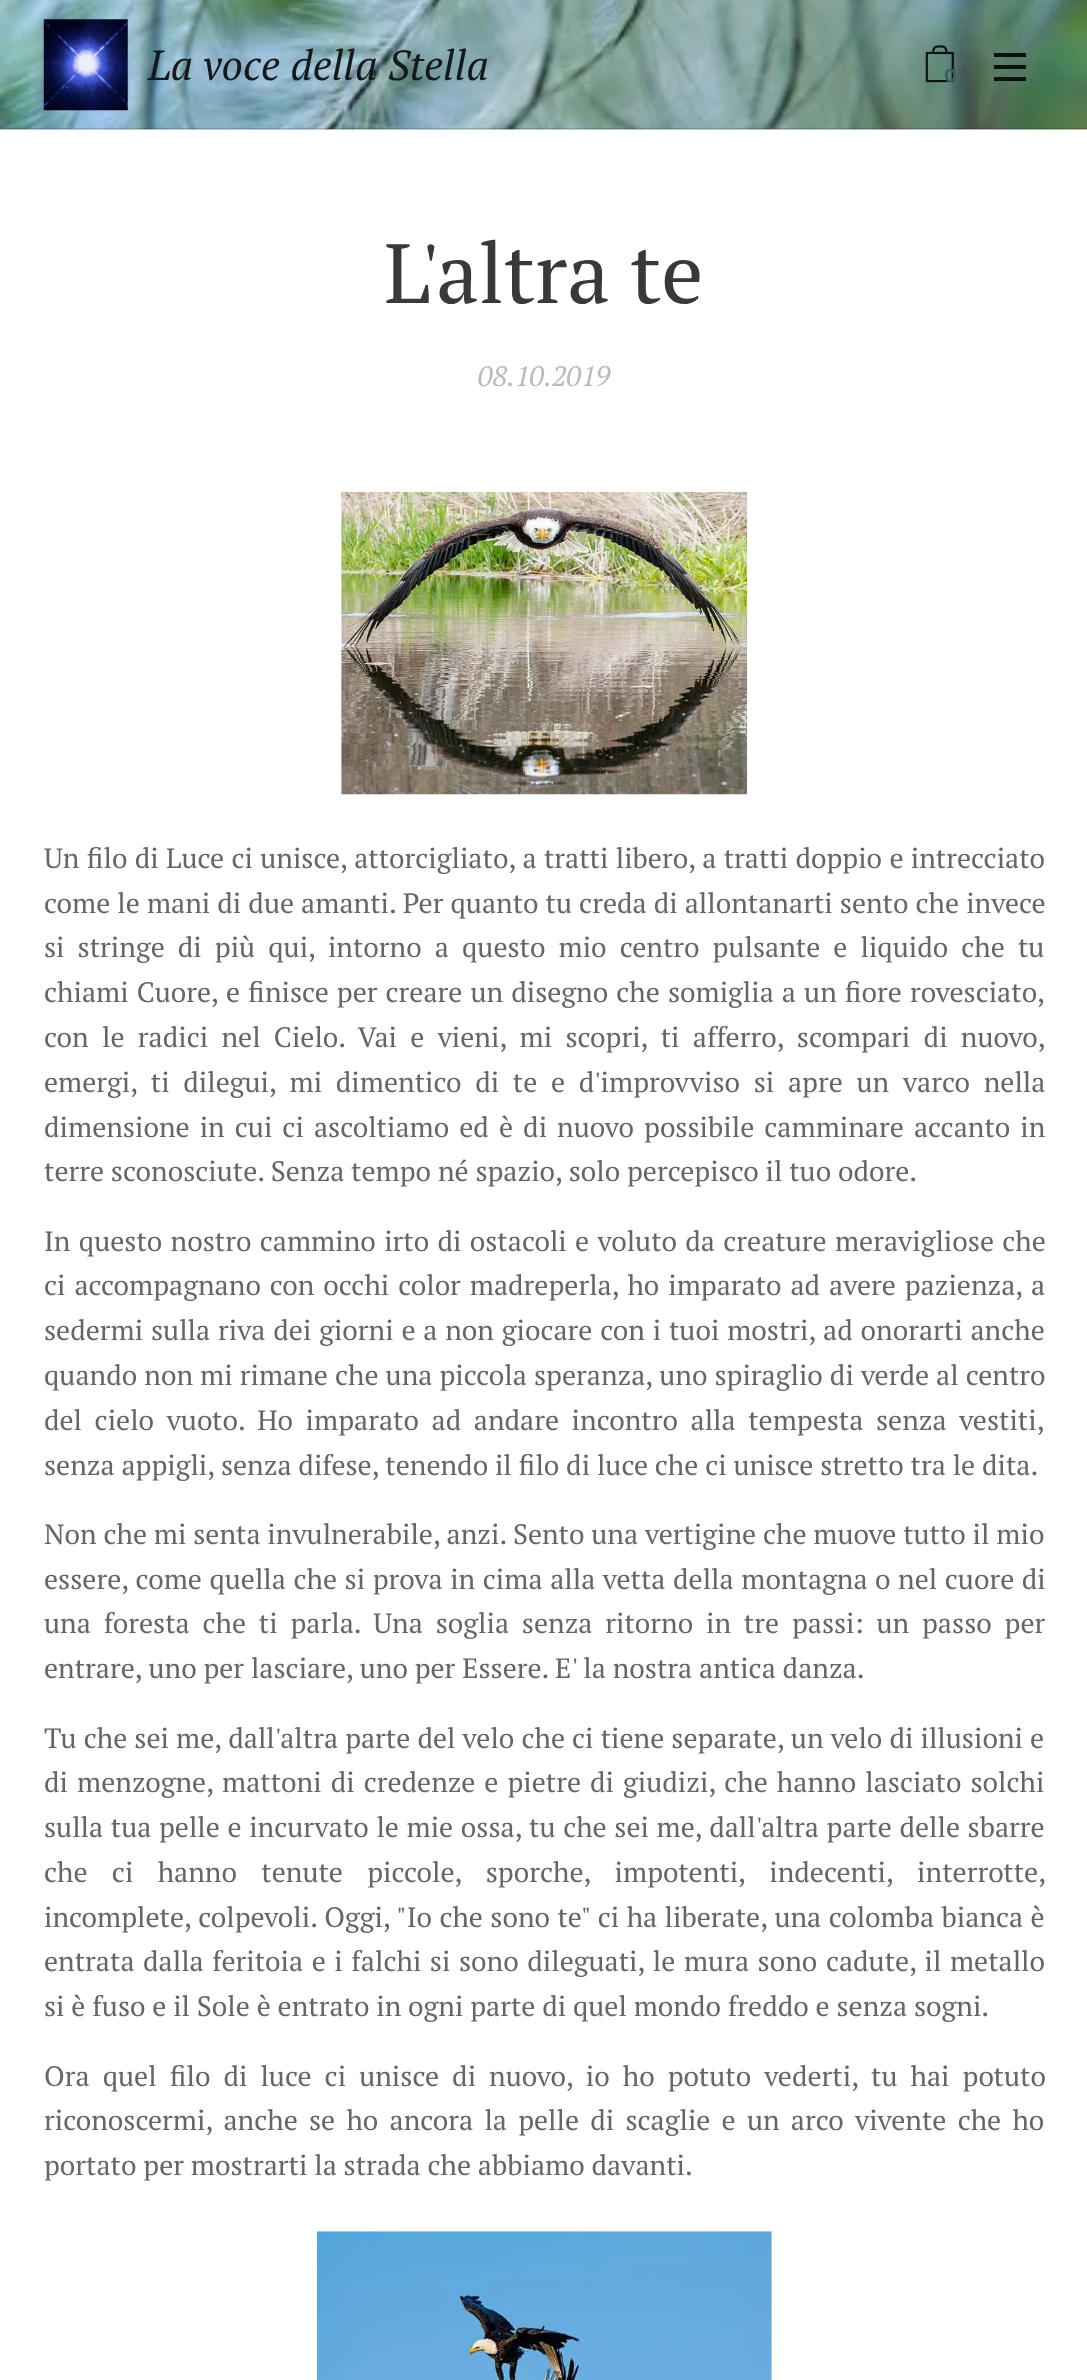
<?xml version="1.0" encoding="UTF-8"?>
<svg xmlns="http://www.w3.org/2000/svg" width="1087" height="2380">
    <rect width="100%" height="100%" fill="#FFFFFF"/>
    <image x="0" y="0" width="1087" height="130" href="img_01.png"/>
    <image x="43" y="19" width="85" height="92" href="img_02.png"/>
    <text x="148" y="80" font-family="PT Serif" font-size="42" font-style="italic" fill="#141A1C">La voce della Stella</text>
    <image x="925" y="45" width="29" height="38" href="img_03.png"/>
    <text x="944" y="82" font-family="Montserrat" font-size="19" font-weight="700" fill="#415D56">0</text>
    <rect x="994" y="65" width="32" height="4" fill="#000000" fill-opacity="0.85"/>
    <rect x="994" y="53" width="32" height="4" fill="#000000" fill-opacity="0.85"/>
    <rect x="994" y="77" width="32" height="4" fill="#000000" fill-opacity="0.85"/>
    <rect x="0" y="128" width="1087" height="2" fill="#000000" fill-opacity="0.15"/>
    <text x="384" y="303" font-family="PT Serif" font-size="84" fill="#393939">L'altra te</text>
    <text x="478" y="386" font-family="PT Serif" font-size="28" font-style="italic" fill="#BABABA">08.10.2019</text>
    <image x="341" y="491" width="407" height="304" href="img_04.png"/>
    <text font-family="PT Serif" font-size="28" fill="#666666">
        <tspan x="44" y="868" word-spacing="0.5">Un filo di Luce ci unisce, attorcigliato, a tratti libero, a tratti doppio e intrecciato</tspan>
        <tspan x="44" y="913" word-spacing="0.25">come le mani di due amanti. Per quanto tu creda di allontanarti sento che invece</tspan>
        <tspan x="44" y="957" word-spacing="6.25">si stringe di più qui, intorno a questo mio centro pulsante e liquido che tu</tspan>
        <tspan x="44" y="1002" word-spacing="1.25">chiami Cuore, e finisce per creare un disegno che somiglia a un fiore rovesciato,</tspan>
        <tspan x="44" y="1047" word-spacing="6.5">con le radici nel Cielo. Vai e vieni, mi scopri, ti afferro, scompari di nuovo,</tspan>
        <tspan x="44" y="1092" word-spacing="6.9">emergi, ti dilegui, mi dimentico di te e d'improvviso si apre un varco nella</tspan>
        <tspan x="44" y="1137" word-spacing="3.25">dimensione in cui ci ascoltiamo ed è di nuovo possibile camminare accanto in</tspan>
        <tspan x="44" y="1181">terre sconosciute. Senza tempo né spazio, solo percepisco il tuo odore.</tspan>
    </text>
    <text font-family="PT Serif" font-size="28" fill="#666666">
        <tspan x="44" y="1251" word-spacing="1.5">In questo nostro cammino irto di ostacoli e voluto da creature meravigliose che</tspan>
        <tspan x="44" y="1295" word-spacing="2.1">ci accompagnano con occhi color madreperla, ho imparato ad avere pazienza, a</tspan>
        <tspan x="44" y="1340" word-spacing="1">sedermi sulla riva dei giorni e a non giocare con i tuoi mostri, ad onorarti anche</tspan>
        <tspan x="44" y="1385" word-spacing="0.25">quando non mi rimane che una piccola speranza, uno spiraglio di verde al centro</tspan>
        <tspan x="44" y="1430" word-spacing="5.75">del cielo vuoto. Ho imparato ad andare incontro alla tempesta senza vestiti,</tspan>
        <tspan x="44" y="1475">senza appigli, senza difese, tenendo il filo di luce che ci unisce stretto tra le dita.</tspan>
    </text>
    <text font-family="PT Serif" font-size="28" fill="#666666">
        <tspan x="44" y="1544">Non che mi senta invulnerabile, anzi. Sento una vertigine che muove tutto il mio</tspan>
        <tspan x="44" y="1589" word-spacing="0.75">essere, come quella che si prova in cima alla vetta della montagna o nel cuore di</tspan>
        <tspan x="44" y="1633" word-spacing="6">una foresta che ti parla. Una soglia senza ritorno in tre passi: un passo per</tspan>
        <tspan x="44" y="1678">entrare, uno per lasciare, uno per Essere. E' la nostra antica danza.</tspan>
    </text>
    <text font-family="PT Serif" font-size="28" fill="#666666">
        <tspan x="44" y="1748" word-spacing="0.3">Tu che sei me, dall'altra parte del velo che ci tiene separate, un velo di illusioni e</tspan>
        <tspan x="44" y="1792" word-spacing="2.25">di menzogne, mattoni di credenze e pietre di giudizi, che hanno lasciato solchi</tspan>
        <tspan x="44" y="1837" word-spacing="0.8">sulla tua pelle e incurvato le mie ossa, tu che sei me, dall'altra parte delle sbarre</tspan>
        <tspan x="44" y="1882" word-spacing="17.5">che ci hanno tenute piccole, sporche, impotenti, indecenti, interrotte,</tspan>
        <tspan x="44" y="1927" word-spacing="0.6">incomplete, colpevoli. Oggi, "Io che sono te" ci ha liberate, una colomba bianca è</tspan>
        <tspan x="44" y="1971" word-spacing="1.75">entrata dalla feritoia e i falchi si sono dileguati, le mura sono cadute, il metallo</tspan>
        <tspan x="44" y="2016">si è fuso e il Sole è entrato in ogni parte di quel mondo freddo e senza sogni.</tspan>
    </text>
    <text font-family="PT Serif" font-size="28" fill="#666666">
        <tspan x="44" y="2086" word-spacing="6.25">Ora quel filo di luce ci unisce di nuovo, io ho potuto vederti, tu hai potuto</tspan>
        <tspan x="44" y="2130" word-spacing="4.4">riconoscermi, anche se ho ancora la pelle di scaglie e un arco vivente che ho</tspan>
        <tspan x="44" y="2175">portato per mostrarti la strada che abbiamo davanti.</tspan>
    </text>
    <image x="316" y="2231" width="456" height="149" href="img_05.png"/>
</svg>
